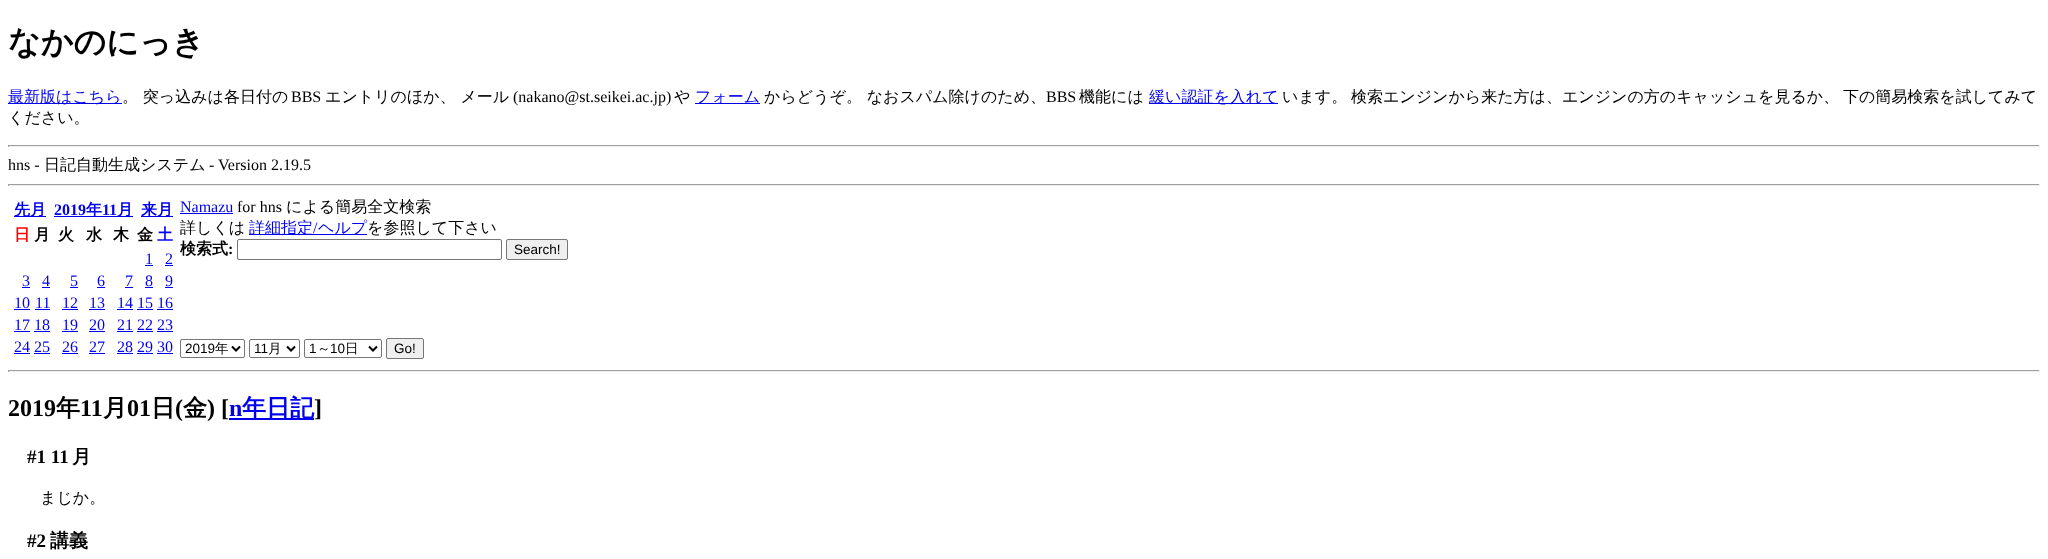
<?xml version="1.0" encoding="UTF-8"?>
<svg xmlns="http://www.w3.org/2000/svg" width="2048" height="559">
    <rect width="100%" height="100%" fill="#FFFFFF"/>
    <text x="8" y="53" font-family="WenQuanYi Zen Hei" font-size="32" font-weight="700" fill="#000000">なかのにっき</text>
    <rect x="8" y="103" width="114" height="1" fill="#0000EE"/>
    <text x="8" y="102" font-family="WenQuanYi Zen Hei" font-size="16" font-weight="500" fill="#0000EE">最新版はこちら</text>
    <text x="122" y="102" font-family="WenQuanYi Zen Hei" font-size="16" font-weight="500" fill="#000000">。 突っ込みは各日付の</text>
    <text x="291" y="102" font-family="Liberation Serif" font-size="16" fill="#000000">BBS</text>
    <text x="325" y="102" font-family="WenQuanYi Zen Hei" font-size="16" font-weight="500" fill="#000000">エントリのほか、 メール</text>
    <text x="513" y="102" font-family="Liberation Serif" font-size="16" fill="#000000">(nakano@st.seikei.ac.jp)</text>
    <text x="674" y="102" font-family="WenQuanYi Zen Hei" font-size="16" font-weight="500" fill="#000000">や</text>
    <rect x="695" y="103" width="65" height="1" fill="#0000EE"/>
    <text x="695" y="102" font-family="WenQuanYi Zen Hei" font-size="16" font-weight="500" fill="#0000EE">フォーム</text>
    <text x="764" y="102" font-family="WenQuanYi Zen Hei" font-size="16" font-weight="500" fill="#000000">からどうぞ。 なおスパム除けのため、</text>
    <text x="1046" y="102" font-family="Liberation Serif" font-size="16" fill="#000000">BBS</text>
    <text x="1079" y="102" font-family="WenQuanYi Zen Hei" font-size="16" font-weight="500" fill="#000000">機能には</text>
    <rect x="1149" y="103" width="129" height="1" fill="#0000EE"/>
    <text x="1149" y="102" font-family="WenQuanYi Zen Hei" font-size="16" font-weight="500" fill="#0000EE">緩い認証を入れて</text>
    <text x="1282" y="102" word-spacing="-1" font-family="WenQuanYi Zen Hei" font-size="16" font-weight="500" fill="#000000">います。 検索エンジンから来た方は、エンジンの方のキャッシュを見るか、 下の簡易検索を試してみて</text>
    <text x="8" y="123" font-family="WenQuanYi Zen Hei" font-size="16" font-weight="500" fill="#000000">ください。</text>
    <rect x="8" y="145" width="2032" height="1" fill="#9F9F9F"/>
    <rect x="2039" y="145" width="1" height="2" fill="#EEEEEE"/>
    <rect x="8" y="146" width="2032" height="1" fill="#EEEEEE"/>
    <rect x="8" y="145" width="1" height="2" fill="#9F9F9F"/>
    <text x="8" y="170" font-family="Liberation Serif" font-size="16" fill="#000000">hns -</text>
    <text x="44" y="170" font-family="WenQuanYi Zen Hei" font-size="16" font-weight="500" fill="#000000">日記自動生成システム</text>
    <text x="209" y="170" font-family="Liberation Serif" font-size="16" fill="#000000">- Version 2.19.5</text>
    <rect x="8" y="184" width="2032" height="1" fill="#9F9F9F"/>
    <rect x="2039" y="184" width="1" height="2" fill="#EEEEEE"/>
    <rect x="8" y="185" width="2032" height="1" fill="#EEEEEE"/>
    <rect x="8" y="184" width="1" height="2" fill="#9F9F9F"/>
    <rect x="14" y="216" width="32" height="1" fill="#0000EE"/>
    <text x="14" y="215" font-family="WenQuanYi Zen Hei" font-size="16" font-weight="700" fill="#0000EE">先月</text>
    <text x="54" y="215" font-family="Liberation Serif" font-size="16" font-weight="700" fill="#0000EE">2019</text>
    <rect x="54" y="216" width="79" height="1" fill="#0000EE"/>
    <text x="86" y="215" font-family="WenQuanYi Zen Hei" font-size="16" font-weight="700" fill="#0000EE">年</text>
    <text x="102" y="215" font-family="Liberation Serif" font-size="16" font-weight="700" fill="#0000EE">11</text>
    <text x="117" y="215" font-family="WenQuanYi Zen Hei" font-size="16" font-weight="700" fill="#0000EE">月</text>
    <rect x="141" y="216" width="32" height="1" fill="#0000EE"/>
    <text x="141" y="215" font-family="WenQuanYi Zen Hei" font-size="16" font-weight="700" fill="#0000EE">来月</text>
    <text x="14" y="240" font-family="WenQuanYi Zen Hei" font-size="16" font-weight="700" fill="#FF0000">日</text>
    <text x="34" y="240" font-family="WenQuanYi Zen Hei" font-size="16" font-weight="700" fill="#000000">月</text>
    <text x="58" y="240" font-family="WenQuanYi Zen Hei" font-size="16" font-weight="700" fill="#000000">火</text>
    <text x="86" y="240" font-family="WenQuanYi Zen Hei" font-size="16" font-weight="700" fill="#000000">水</text>
    <text x="113" y="240" font-family="WenQuanYi Zen Hei" font-size="16" font-weight="700" fill="#000000">木</text>
    <text x="137" y="240" font-family="WenQuanYi Zen Hei" font-size="16" font-weight="700" fill="#000000">金</text>
    <text x="157" y="240" font-family="WenQuanYi Zen Hei" font-size="16" font-weight="700" fill="#0000FF">土</text>
    <text x="145" y="264" font-family="Liberation Serif" font-size="16" fill="#0000EE">1</text>
    <rect x="145" y="265" width="8" height="1" fill="#0000EE"/>
    <text x="165" y="264" font-family="Liberation Serif" font-size="16" fill="#0000EE">2</text>
    <rect x="165" y="265" width="8" height="1" fill="#0000EE"/>
    <text x="22" y="286" font-family="Liberation Serif" font-size="16" fill="#0000EE">3</text>
    <rect x="22" y="287" width="8" height="1" fill="#0000EE"/>
    <text x="42" y="286" font-family="Liberation Serif" font-size="16" fill="#0000EE">4</text>
    <rect x="42" y="287" width="8" height="1" fill="#0000EE"/>
    <text x="70" y="286" font-family="Liberation Serif" font-size="16" fill="#0000EE">5</text>
    <rect x="70" y="287" width="8" height="1" fill="#0000EE"/>
    <text x="97" y="286" font-family="Liberation Serif" font-size="16" fill="#0000EE">6</text>
    <rect x="97" y="287" width="8" height="1" fill="#0000EE"/>
    <text x="125" y="286" font-family="Liberation Serif" font-size="16" fill="#0000EE">7</text>
    <rect x="125" y="287" width="8" height="1" fill="#0000EE"/>
    <text x="145" y="286" font-family="Liberation Serif" font-size="16" fill="#0000EE">8</text>
    <rect x="145" y="287" width="8" height="1" fill="#0000EE"/>
    <text x="165" y="286" font-family="Liberation Serif" font-size="16" fill="#0000EE">9</text>
    <rect x="165" y="287" width="8" height="1" fill="#0000EE"/>
    <text x="14" y="308" font-family="Liberation Serif" font-size="16" fill="#0000EE">10</text>
    <rect x="14" y="309" width="16" height="1" fill="#0000EE"/>
    <text x="35" y="308" font-family="Liberation Serif" font-size="16" fill="#0000EE">11</text>
    <rect x="35" y="309" width="15" height="1" fill="#0000EE"/>
    <text x="62" y="308" font-family="Liberation Serif" font-size="16" fill="#0000EE">12</text>
    <rect x="62" y="309" width="16" height="1" fill="#0000EE"/>
    <text x="89" y="308" font-family="Liberation Serif" font-size="16" fill="#0000EE">13</text>
    <rect x="89" y="309" width="16" height="1" fill="#0000EE"/>
    <text x="117" y="308" font-family="Liberation Serif" font-size="16" fill="#0000EE">14 15 16</text>
    <rect x="117" y="309" width="16" height="1" fill="#0000EE"/>
    <rect x="137" y="309" width="16" height="1" fill="#0000EE"/>
    <rect x="157" y="309" width="16" height="1" fill="#0000EE"/>
    <text x="14" y="330" font-family="Liberation Serif" font-size="16" fill="#0000EE">17 18</text>
    <rect x="14" y="331" width="16" height="1" fill="#0000EE"/>
    <text x="62" y="330" font-family="Liberation Serif" font-size="16" fill="#0000EE">19</text>
    <rect x="62" y="331" width="16" height="1" fill="#0000EE"/>
    <text x="89" y="330" font-family="Liberation Serif" font-size="16" fill="#0000EE">20</text>
    <rect x="89" y="331" width="16" height="1" fill="#0000EE"/>
    <text x="117" y="330" font-family="Liberation Serif" font-size="16" fill="#0000EE">21 22 23</text>
    <rect x="117" y="331" width="16" height="1" fill="#0000EE"/>
    <rect x="34" y="331" width="16" height="1" fill="#0000EE"/>
    <rect x="137" y="331" width="16" height="1" fill="#0000EE"/>
    <rect x="157" y="331" width="16" height="1" fill="#0000EE"/>
    <text x="14" y="352" font-family="Liberation Serif" font-size="16" fill="#0000EE">24 25</text>
    <rect x="14" y="353" width="16" height="1" fill="#0000EE"/>
    <text x="62" y="352" font-family="Liberation Serif" font-size="16" fill="#0000EE">26</text>
    <rect x="62" y="353" width="16" height="1" fill="#0000EE"/>
    <text x="89" y="352" font-family="Liberation Serif" font-size="16" fill="#0000EE">27</text>
    <rect x="89" y="353" width="16" height="1" fill="#0000EE"/>
    <text x="117" y="352" font-family="Liberation Serif" font-size="16" fill="#0000EE">28 29 30</text>
    <rect x="117" y="353" width="16" height="1" fill="#0000EE"/>
    <rect x="34" y="353" width="16" height="1" fill="#0000EE"/>
    <rect x="137" y="353" width="16" height="1" fill="#0000EE"/>
    <rect x="157" y="353" width="16" height="1" fill="#0000EE"/>
    <text x="180" y="212" font-family="Liberation Serif" font-size="16" fill="#0000EE">Namazu</text>
    <rect x="180" y="213" width="53" height="1" fill="#0000EE"/>
    <text x="237" y="212" font-family="Liberation Serif" font-size="16" fill="#000000">for hns</text>
    <text x="286" y="212" font-family="WenQuanYi Zen Hei" font-size="16" font-weight="500" fill="#000000">による簡易全文検索</text>
    <text x="180" y="233" font-family="WenQuanYi Zen Hei" font-size="16" font-weight="500" fill="#000000">詳しくは</text>
    <rect x="249" y="234" width="118" height="1" fill="#0000EE"/>
    <text x="249" y="233" font-family="WenQuanYi Zen Hei" font-size="16" font-weight="500" fill="#0000EE">詳細指定</text>
    <text x="313" y="233" font-family="Liberation Serif" font-size="16" fill="#0000EE">/</text>
    <text x="318" y="233" font-family="WenQuanYi Zen Hei" font-size="16" font-weight="500" fill="#0000EE">ヘルプ</text>
    <text x="367" y="233" font-family="WenQuanYi Zen Hei" font-size="16" font-weight="500" fill="#000000">を参照して下さい</text>
    <text x="180" y="254" font-family="WenQuanYi Zen Hei" font-size="16" font-weight="700" fill="#000000">検索式</text>
    <text x="228" y="254" font-family="Liberation Serif" font-size="16" font-weight="700" fill="#000000">:</text>
    <rect x="237.5" y="239.5" width="264" height="20" rx="1.5" fill="none" stroke="#767676"/>
    <rect x="506.5" y="239.5" width="61" height="20" rx="1.5" fill="#EFEFEF" stroke="#767676"/>
    <text x="514" y="254" font-family="Liberation Sans" font-size="13.5" fill="#000000">Search!</text>
    <rect x="180.5" y="339.5" width="64" height="18" rx="1.5" fill="none" stroke="#767676"/>
    <path d="M 232 346.5 L 236 350.5 L 240 346.5" fill="none" stroke="#000000" stroke-width="2"/>
    <text x="185" y="353" font-family="Liberation Sans" font-size="13.5" fill="#000000">2019</text>
    <text x="215" y="353" font-family="WenQuanYi Zen Hei" font-size="13.5" font-weight="500" fill="#000000">年</text>
    <rect x="249.5" y="339.5" width="50" height="18" rx="1.5" fill="none" stroke="#767676"/>
    <path d="M 287 346.5 L 291 350.5 L 295 346.5" fill="none" stroke="#000000" stroke-width="2"/>
    <text x="254" y="353" font-family="Liberation Sans" font-size="13.5" fill="#000000">11</text>
    <text x="268" y="353" font-family="WenQuanYi Zen Hei" font-size="13.5" font-weight="500" fill="#000000">月</text>
    <rect x="304.5" y="339.5" width="77" height="18" rx="1.5" fill="none" stroke="#767676"/>
    <path d="M 369 346.5 L 373 350.5 L 377 346.5" fill="none" stroke="#000000" stroke-width="2"/>
    <text x="309" y="353" font-family="Liberation Sans" font-size="13.5" fill="#000000">1</text>
    <text x="317" y="353" font-family="WenQuanYi Zen Hei" font-size="13.5" font-weight="500" fill="#000000">～</text>
    <text x="330" y="353" font-family="Liberation Sans" font-size="13.5" fill="#000000">10</text>
    <text x="345" y="353" font-family="WenQuanYi Zen Hei" font-size="13.5" font-weight="500" fill="#000000">日</text>
    <rect x="386.5" y="338.5" width="37" height="20" rx="1.5" fill="#EFEFEF" stroke="#767676"/>
    <text x="394" y="353" font-family="Liberation Sans" font-size="13.5" fill="#000000">Go!</text>
    <rect x="8" y="370" width="2032" height="1" fill="#9F9F9F"/>
    <rect x="2039" y="370" width="1" height="2" fill="#EEEEEE"/>
    <rect x="8" y="371" width="2032" height="1" fill="#EEEEEE"/>
    <rect x="8" y="370" width="1" height="2" fill="#9F9F9F"/>
    <text x="8" y="416" font-family="Liberation Serif" font-size="24" font-weight="700" fill="#000000">2019</text>
    <text x="56" y="416" font-family="WenQuanYi Zen Hei" font-size="24" font-weight="700" fill="#000000">年</text>
    <text x="80" y="416" font-family="Liberation Serif" font-size="24" font-weight="700" fill="#000000">11</text>
    <text x="103" y="416" font-family="WenQuanYi Zen Hei" font-size="24" font-weight="700" fill="#000000">月</text>
    <text x="127" y="416" font-family="Liberation Serif" font-size="24" font-weight="700" fill="#000000">01</text>
    <text x="151" y="416" font-family="WenQuanYi Zen Hei" font-size="24" font-weight="700" fill="#000000">日</text>
    <text x="175" y="416" font-family="Liberation Serif" font-size="24" font-weight="700" fill="#000000">(</text>
    <text x="183" y="416" font-family="WenQuanYi Zen Hei" font-size="24" font-weight="700" fill="#000000">金</text>
    <text x="207" y="416" font-family="Liberation Serif" font-size="24" font-weight="700" fill="#000000">) [</text>
    <text x="229" y="416" font-family="Liberation Serif" font-size="24" font-weight="700" fill="#0000EE">n</text>
    <rect x="229" y="418" width="85" height="2" fill="#0000EE"/>
    <text x="242" y="416" font-family="WenQuanYi Zen Hei" font-size="24" font-weight="700" fill="#0000EE">年日記</text>
    <text x="314" y="416" font-family="Liberation Serif" font-size="24" font-weight="700" fill="#000000">]</text>
    <text x="27" y="463" font-family="Liberation Serif" font-size="19" font-weight="700" fill="#000000">#1 11</text>
    <text x="72" y="463" font-family="WenQuanYi Zen Hei" font-size="19" font-weight="700" fill="#000000">月</text>
    <text x="40" y="503" font-family="WenQuanYi Zen Hei" font-size="16" font-weight="500" fill="#000000">まじか。</text>
    <text x="27" y="547" font-family="Liberation Serif" font-size="19" font-weight="700" fill="#000000">#2</text>
    <text x="50" y="547" font-family="WenQuanYi Zen Hei" font-size="19" font-weight="700" fill="#000000">講義</text>
</svg>
